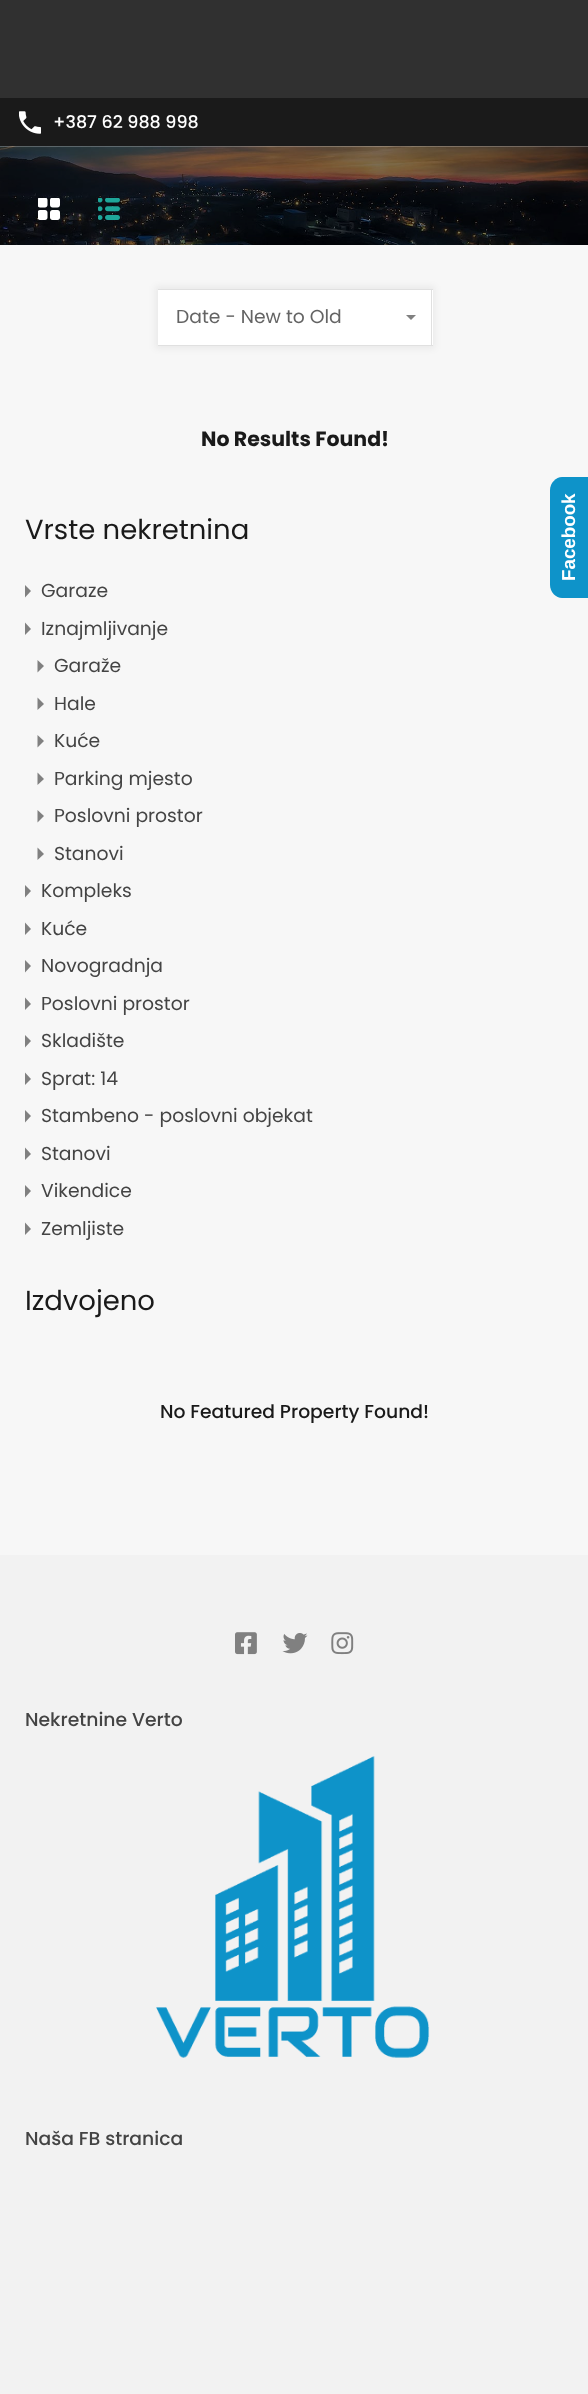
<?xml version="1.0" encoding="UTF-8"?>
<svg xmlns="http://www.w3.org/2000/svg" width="588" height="2394">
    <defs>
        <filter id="blur1" x="-50%" y="-200%" width="200%" height="500%"><feGaussianBlur stdDeviation="3"/></filter>
    </defs>
    <rect width="100%" height="100%" fill="#F7F7F7"/>
    <rect x="0" y="0" width="588" height="98" fill="#303030"/>
    <rect x="0" y="98" width="588" height="48" fill="#1A1A1A"/>
    <image x="19" y="111" width="22" height="23" href="img_01.png"/>
    <text x="53" y="128" font-family="Poppins" font-size="17.5" font-weight="500" fill="#FFFFFF">+387 62 988 998</text>
    <image x="0" y="146" width="588" height="99" href="img_02.png"/>
    <image x="38" y="198" width="22" height="22" href="img_03.png"/>
    <image x="98" y="198" width="22" height="22" href="img_04.png"/>
    <rect x="155" y="286" width="280" height="63" fill="#000000" fill-opacity="0.05" filter="url(#blur1)"/>
    <rect x="158" y="290" width="275" height="55" fill="#FFFFFF"/>
    <rect x="158" y="289" width="275" height="1" fill="#E0E0E0"/>
    <rect x="431" y="289" width="1" height="57" fill="#E0E0E0"/>
    <rect x="158" y="345" width="275" height="1" fill="#E0E0E0"/>
    <text x="176" y="323" font-family="Poppins" font-size="18.75" fill="#646464">Date - New to Old</text>
    <path d="M 406 315 H 416 L 411 320 Z" fill="#808080"/>
    <text x="201" y="446" font-family="Poppins" font-size="20.5" font-weight="700" fill="#1A1A1A">No Results Found!</text>
    <text x="25" y="539" font-family="Poppins" font-size="27.5" fill="#1A1A1A">Vrste nekretnina</text>
    <path d="M 25 597.5 V 585 L 31 591 Z" fill="#808080"/>
    <text x="41" y="597" font-family="Poppins" font-size="18.75" fill="#444444">Garaze</text>
    <path d="M 25 635 V 622.5 L 31 629 Z" fill="#808080"/>
    <text x="41" y="635" font-family="Poppins" font-size="18.75" fill="#444444">Iznajmljivanje</text>
    <path d="M 37.5 672.5 V 660 L 44 666 Z" fill="#808080"/>
    <text x="54" y="672" font-family="Poppins" font-size="18.75" fill="#444444">Garaže</text>
    <path d="M 37.5 710 V 697.5 L 44 704 Z" fill="#808080"/>
    <text x="54" y="710" font-family="Poppins" font-size="18.75" fill="#444444">Hale</text>
    <path d="M 37.5 747.5 V 735 L 44 741 Z" fill="#808080"/>
    <text x="54" y="747" font-family="Poppins" font-size="18.75" fill="#444444">Kuće</text>
    <path d="M 37.5 785 V 772.5 L 44 779 Z" fill="#808080"/>
    <text x="54" y="785" font-family="Poppins" font-size="18.75" fill="#444444">Parking mjesto</text>
    <path d="M 37.5 822.5 V 810 L 44 816 Z" fill="#808080"/>
    <text x="54" y="822" font-family="Poppins" font-size="18.75" fill="#444444">Poslovni prostor</text>
    <path d="M 37.5 860 V 847.5 L 44 854 Z" fill="#808080"/>
    <text x="54" y="860" font-family="Poppins" font-size="18.75" fill="#444444">Stanovi</text>
    <path d="M 25 897.5 V 885 L 31 891 Z" fill="#808080"/>
    <text x="41" y="897" font-family="Poppins" font-size="18.75" fill="#444444">Kompleks</text>
    <path d="M 25 935 V 922.5 L 31 929 Z" fill="#808080"/>
    <text x="41" y="935" font-family="Poppins" font-size="18.75" fill="#444444">Kuće</text>
    <path d="M 25 972.5 V 960 L 31 966 Z" fill="#808080"/>
    <text x="41" y="972" font-family="Poppins" font-size="18.75" fill="#444444">Novogradnja</text>
    <path d="M 25 1010 V 997.5 L 31 1004 Z" fill="#808080"/>
    <text x="41" y="1010" font-family="Poppins" font-size="18.75" fill="#444444">Poslovni prostor</text>
    <path d="M 25 1047.5 V 1035 L 31 1041 Z" fill="#808080"/>
    <text x="41" y="1047" font-family="Poppins" font-size="18.75" fill="#444444">Skladište</text>
    <path d="M 25 1085 V 1072.5 L 31 1079 Z" fill="#808080"/>
    <text x="41" y="1085" font-family="Poppins" font-size="18.75" fill="#444444">Sprat: 14</text>
    <path d="M 25 1122.5 V 1110 L 31 1116 Z" fill="#808080"/>
    <text x="41" y="1122" font-family="Poppins" font-size="18.75" fill="#444444">Stambeno - poslovni objekat</text>
    <path d="M 25 1160 V 1147.5 L 31 1154 Z" fill="#808080"/>
    <text x="41" y="1160" font-family="Poppins" font-size="18.75" fill="#444444">Stanovi</text>
    <path d="M 25 1197.5 V 1185 L 31 1191 Z" fill="#808080"/>
    <text x="41" y="1197" font-family="Poppins" font-size="18.75" fill="#444444">Vikendice</text>
    <path d="M 25 1235 V 1222.5 L 31 1229 Z" fill="#808080"/>
    <text x="41" y="1235" font-family="Poppins" font-size="18.75" fill="#444444">Zemljiste</text>
    <text x="25" y="1310" font-family="Poppins" font-size="27.5" fill="#1A1A1A">Izdvojeno</text>
    <text x="160" y="1418" font-family="Poppins" font-size="18.75" font-weight="500" fill="#1A1A1A">No Featured Property Found!</text>
    <rect x="0" y="1555" width="588" height="839" fill="#F2F2F2"/>
    <image x="235" y="1632" width="22" height="23" href="img_05.png"/>
    <image x="282" y="1633" width="26" height="21" href="img_06.png"/>
    <image x="331" y="1632" width="23" height="23" href="img_07.png"/>
    <text x="25" y="1726" font-family="Poppins" font-size="18.75" font-weight="500" fill="#444444">Nekretnine Verto</text>
    <image x="156" y="1756" width="274" height="302" href="img_08.png"/>
    <text x="25" y="2145" font-family="Poppins" font-size="18.75" font-weight="500" fill="#444444">Naša FB stranica</text>
    <path d="M 550 585 V 490 C 550 483 556 477 562 477 H 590 V 598 H 562 C 556 598 550 592 550 585 Z" fill="#0E93C9"/>
    <text x="575" y="581" transform="rotate(-90 575 581)" font-family="Liberation Sans" font-size="18.75" font-weight="700" fill="#FFFFFF">Facebook</text>
</svg>
